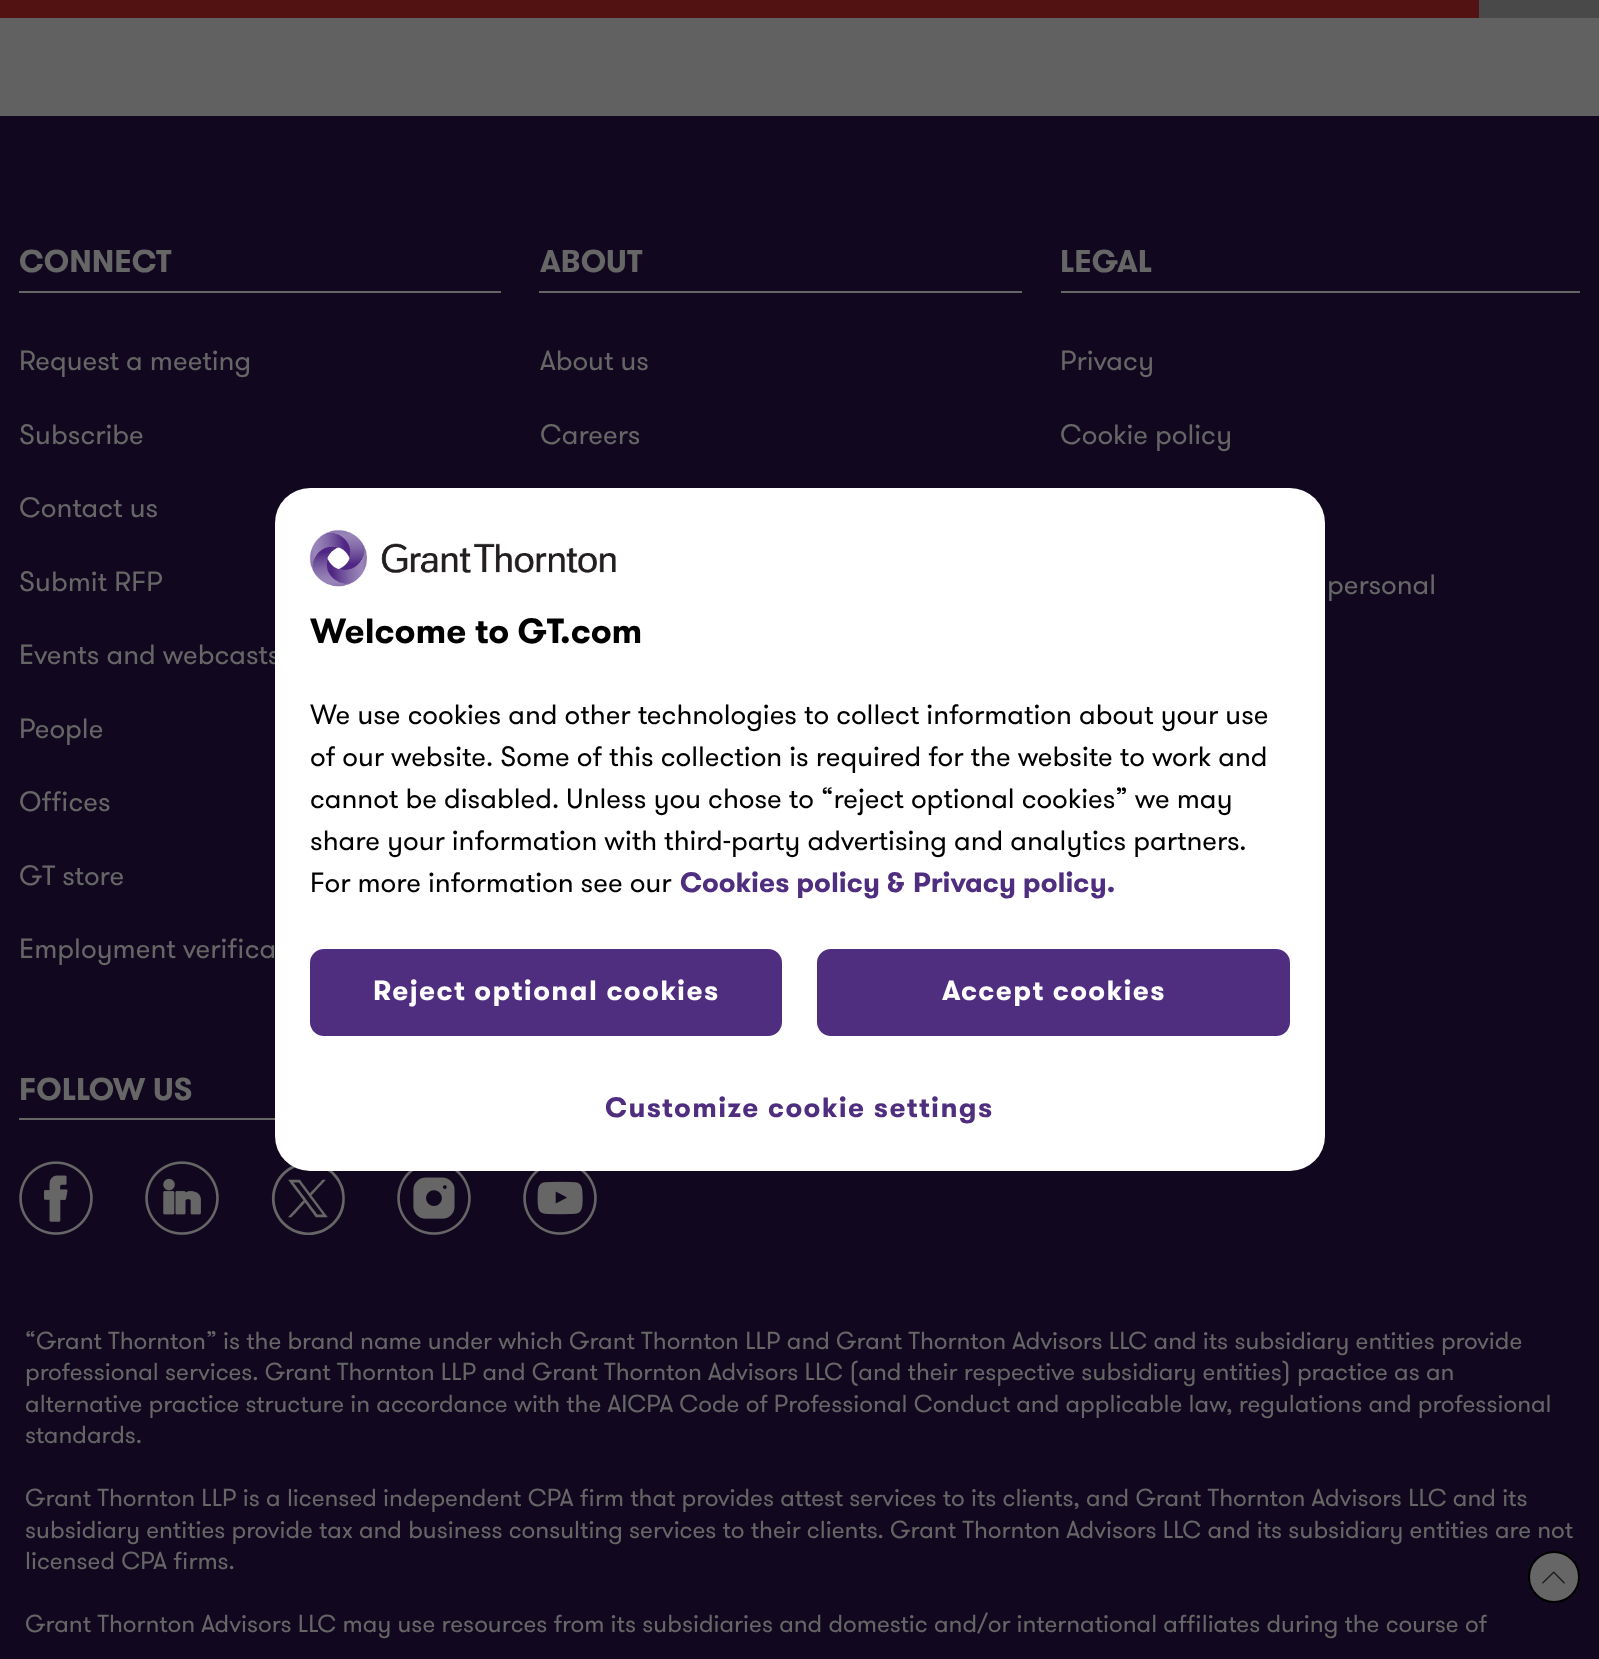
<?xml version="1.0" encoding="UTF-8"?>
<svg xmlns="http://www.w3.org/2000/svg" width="1599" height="1659">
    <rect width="100%" height="100%" fill="#626161"/>
    <rect x="1479" y="0" width="120" height="18" fill="#4A4949"/>
    <rect x="0" y="0" width="1479" height="18" fill="#521212"/>
    <rect x="0" y="116" width="1599" height="1543" fill="#11081F"/>
    <rect x="19" y="291" width="482" height="2" fill="#666666"/>
    <text x="19" y="272" font-family="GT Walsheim" font-size="31.5" font-weight="700" fill="#666666">CONNECT</text>
    <text x="19" y="370" font-family="GT Walsheim" font-size="28" fill="#666666">Request a meeting</text>
    <text x="19" y="444" font-family="GT Walsheim" font-size="28" fill="#666666">Subscribe</text>
    <text x="19" y="517" font-family="GT Walsheim" font-size="28" fill="#666666">Contact us</text>
    <text x="19" y="591" font-family="GT Walsheim" font-size="28" fill="#666666">Submit RFP</text>
    <text x="19" y="664" font-family="GT Walsheim" font-size="28" fill="#666666">Events and webcasts</text>
    <text x="19" y="738" font-family="GT Walsheim" font-size="28" fill="#666666">People</text>
    <text x="19" y="811" font-family="GT Walsheim" font-size="28" fill="#666666">Offices</text>
    <text x="19" y="885" font-family="GT Walsheim" font-size="28" fill="#666666">GT store</text>
    <text x="19" y="958" font-family="GT Walsheim" font-size="28" fill="#666666">Employment verifica</text>
    <rect x="539" y="291" width="483" height="2" fill="#666666"/>
    <text x="540" y="272" font-family="GT Walsheim" font-size="31.5" font-weight="700" fill="#666666">ABOUT</text>
    <text x="540" y="370" font-family="GT Walsheim" font-size="28" fill="#666666">About us</text>
    <text x="540" y="444" font-family="GT Walsheim" font-size="28" fill="#666666">Careers</text>
    <rect x="1061" y="291" width="519" height="2" fill="#666666"/>
    <text x="1060" y="272" font-family="GT Walsheim" font-size="31.5" font-weight="700" fill="#666666">LEGAL</text>
    <text x="1060" y="370" font-family="GT Walsheim" font-size="28" fill="#666666">Privacy</text>
    <text x="1060" y="444" font-family="GT Walsheim" font-size="28" fill="#666666">Cookie policy</text>
    <text x="1327" y="594" font-family="GT Walsheim" font-size="28" fill="#666666">personal</text>
    <rect x="19" y="1118" width="256" height="2" fill="#666666"/>
    <text x="19" y="1100" font-family="GT Walsheim" font-size="31.5" font-weight="700" fill="#666666">FOLLOW US</text>
    <image x="19" y="1161" width="74" height="74" href="img_01.png"/>
    <image x="145" y="1161" width="74" height="74" href="img_02.png"/>
    <image x="271" y="1166" width="74" height="69" href="img_03.png"/>
    <image x="397" y="1171" width="74" height="64" href="img_04.png"/>
    <image x="523" y="1171" width="74" height="64" href="img_05.png"/>
    <text font-family="GT Walsheim" font-size="24.5" fill="#666666">
        <tspan x="25" y="1349">“Grant Thornton” is the brand name under which Grant Thornton LLP and Grant Thornton Advisors LLC and its subsidiary entities provide</tspan>
        <tspan x="25" y="1380">professional services. Grant Thornton LLP and Grant Thornton Advisors LLC (and their respective subsidiary entities) practice as an</tspan>
        <tspan x="25" y="1412">alternative practice structure in accordance with the AICPA Code of Professional Conduct and applicable law, regulations and professional</tspan>
        <tspan x="25" y="1443">standards.</tspan>
    </text>
    <text font-family="GT Walsheim" font-size="24.5" fill="#666666">
        <tspan x="25" y="1506">Grant Thornton LLP is a licensed independent CPA firm that provides attest services to its clients, and Grant Thornton Advisors LLC and its</tspan>
        <tspan x="25" y="1538">subsidiary entities provide tax and business consulting services to their clients. Grant Thornton Advisors LLC and its subsidiary entities are not</tspan>
        <tspan x="25" y="1569">licensed CPA firms.</tspan>
    </text>
    <text x="25" y="1632" font-family="GT Walsheim" font-size="24.5" fill="#666666">Grant Thornton Advisors LLC may use resources from its subsidiaries and domestic and/or international affiliates during the course of</text>
    <circle cx="1554" cy="1577" r="25" fill="#666666" stroke="#000000" stroke-width="2"/>
    <image x="1542" y="1571" width="23" height="13" href="img_06.png"/>
    <rect x="275" y="488" width="1050" height="683" rx="35" fill="#FFFFFF"/>
    <image x="309" y="530" width="307" height="57" href="img_07.png"/>
    <text x="310" y="643" font-family="GT Walsheim" font-size="35" font-weight="700" fill="#000000">Welcome to GT.com</text>
    <text font-family="GT Walsheim" font-size="28" fill="#000000">
        <tspan x="310" y="724">We use cookies and other technologies to collect information about your use</tspan>
        <tspan x="310" y="766">of our website. Some of this collection is required for the website to work and</tspan>
        <tspan x="310" y="808">cannot be disabled. Unless you chose to “reject optional cookies” we may</tspan>
        <tspan x="310" y="850">share your information with third-party advertising and analytics partners.</tspan>
        <tspan x="310" y="892">For more information see our</tspan>
    </text>
    <text x="680" y="892" font-family="GT Walsheim" font-size="28" font-weight="700" fill="#4F2D7F">Cookies policy &amp;</text>
    <text x="913" y="892" font-family="GT Walsheim" font-size="28" font-weight="700" fill="#4F2D7F">Privacy policy.</text>
    <rect x="312" y="951" width="468" height="83" rx="12" fill="#4F2D7F" stroke="#4F2D7F" stroke-width="4"/>
    <text x="373" y="1000" font-family="GT Walsheim" font-size="28" font-weight="700" letter-spacing="1.4" fill="#FFFFFF">Reject optional cookies</text>
    <rect x="819" y="951" width="469" height="83" rx="12" fill="#4F2D7F" stroke="#4F2D7F" stroke-width="4"/>
    <text x="942" y="1000" font-family="GT Walsheim" font-size="28" font-weight="700" letter-spacing="1.4" fill="#FFFFFF">Accept cookies</text>
    <text x="605" y="1117" font-family="GT Walsheim" font-size="28" font-weight="700" letter-spacing="1.4" fill="#4F2D7F">Customize cookie settings</text>
</svg>
